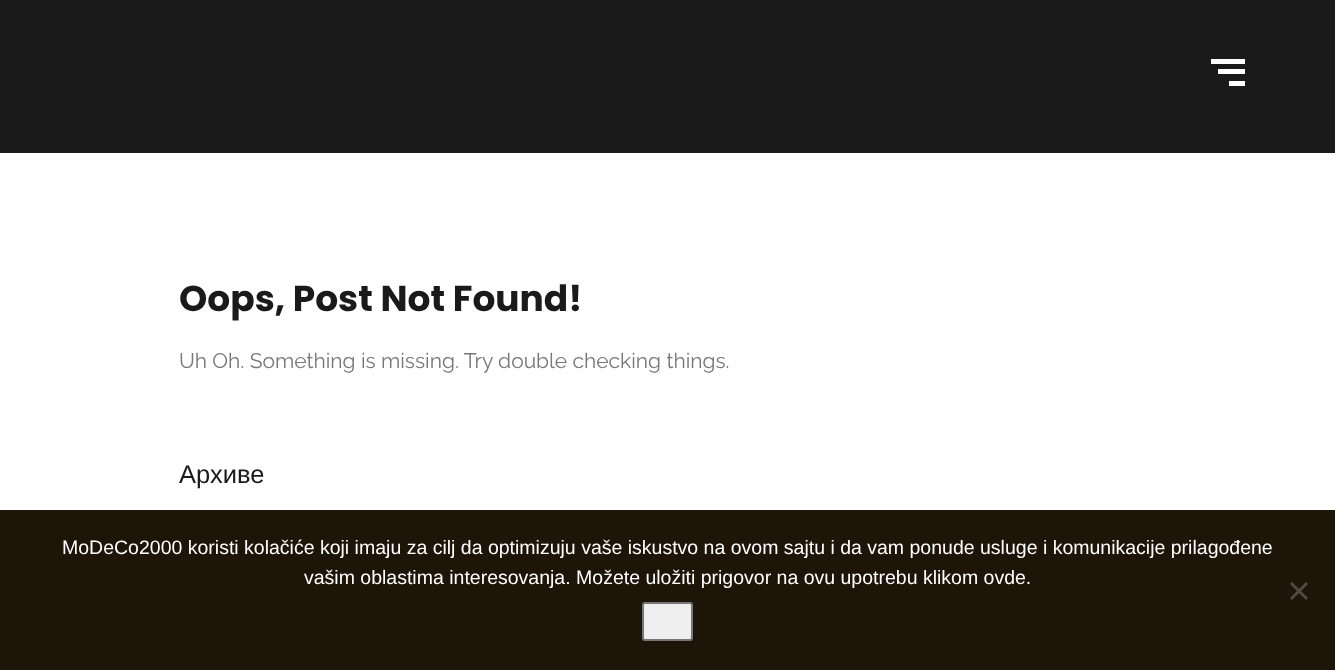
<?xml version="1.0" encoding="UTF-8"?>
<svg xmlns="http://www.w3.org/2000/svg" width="1335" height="670">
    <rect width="100%" height="100%" fill="#FFFFFF"/>
    <rect x="0" y="0" width="1335" height="153" fill="#1A1A1A"/>
    <rect x="1218" y="69" width="27" height="5" fill="#FFFFFF"/>
    <rect x="1211" y="59" width="34" height="5" fill="#FFFFFF"/>
    <rect x="1229" y="81" width="16" height="5" fill="#FFFFFF"/>
    <text x="179" y="311" font-family="Poppins" font-size="36" font-weight="700" fill="#1A1A1A">Oops, Post Not Found!</text>
    <text x="179" y="368" font-family="Raleway" font-size="21" fill="#777777">Uh Oh. Something is missing. Try double checking things.</text>
    <text x="179" y="483" font-family="Liberation Sans" font-size="25.5" fill="#1A1A1A">Архиве</text>
    <rect x="0" y="510" width="1335" height="160" fill="#1D1508"/>
    <text x="62" y="554" font-family="Liberation Sans" font-size="19.5" fill="#FFFFFF">MoDeCo2000 koristi kolačiće koji imaju za cilj da optimizuju vaše iskustvo na ovom sajtu i da vam ponude usluge i komunikacije prilagođene</text>
    <text x="304" y="584" font-family="Liberation Sans" font-size="19.5" fill="#FFFFFF">vašim oblastima interesovanja. Možete uložiti prigovor na ovu upotrebu klikom ovde.</text>
    <path d="M 1306 582 L 1308 584 L 1292 600 L 1290 598 Z" fill="#4F4B44"/>
    <path d="M 1290 584 L 1292 582 L 1308 598 L 1306 600 Z" fill="#4F4B44"/>
    <rect x="643" y="603" width="49" height="37" rx="2" fill="#EFEFEF" stroke="#767676" stroke-width="2"/>
</svg>
